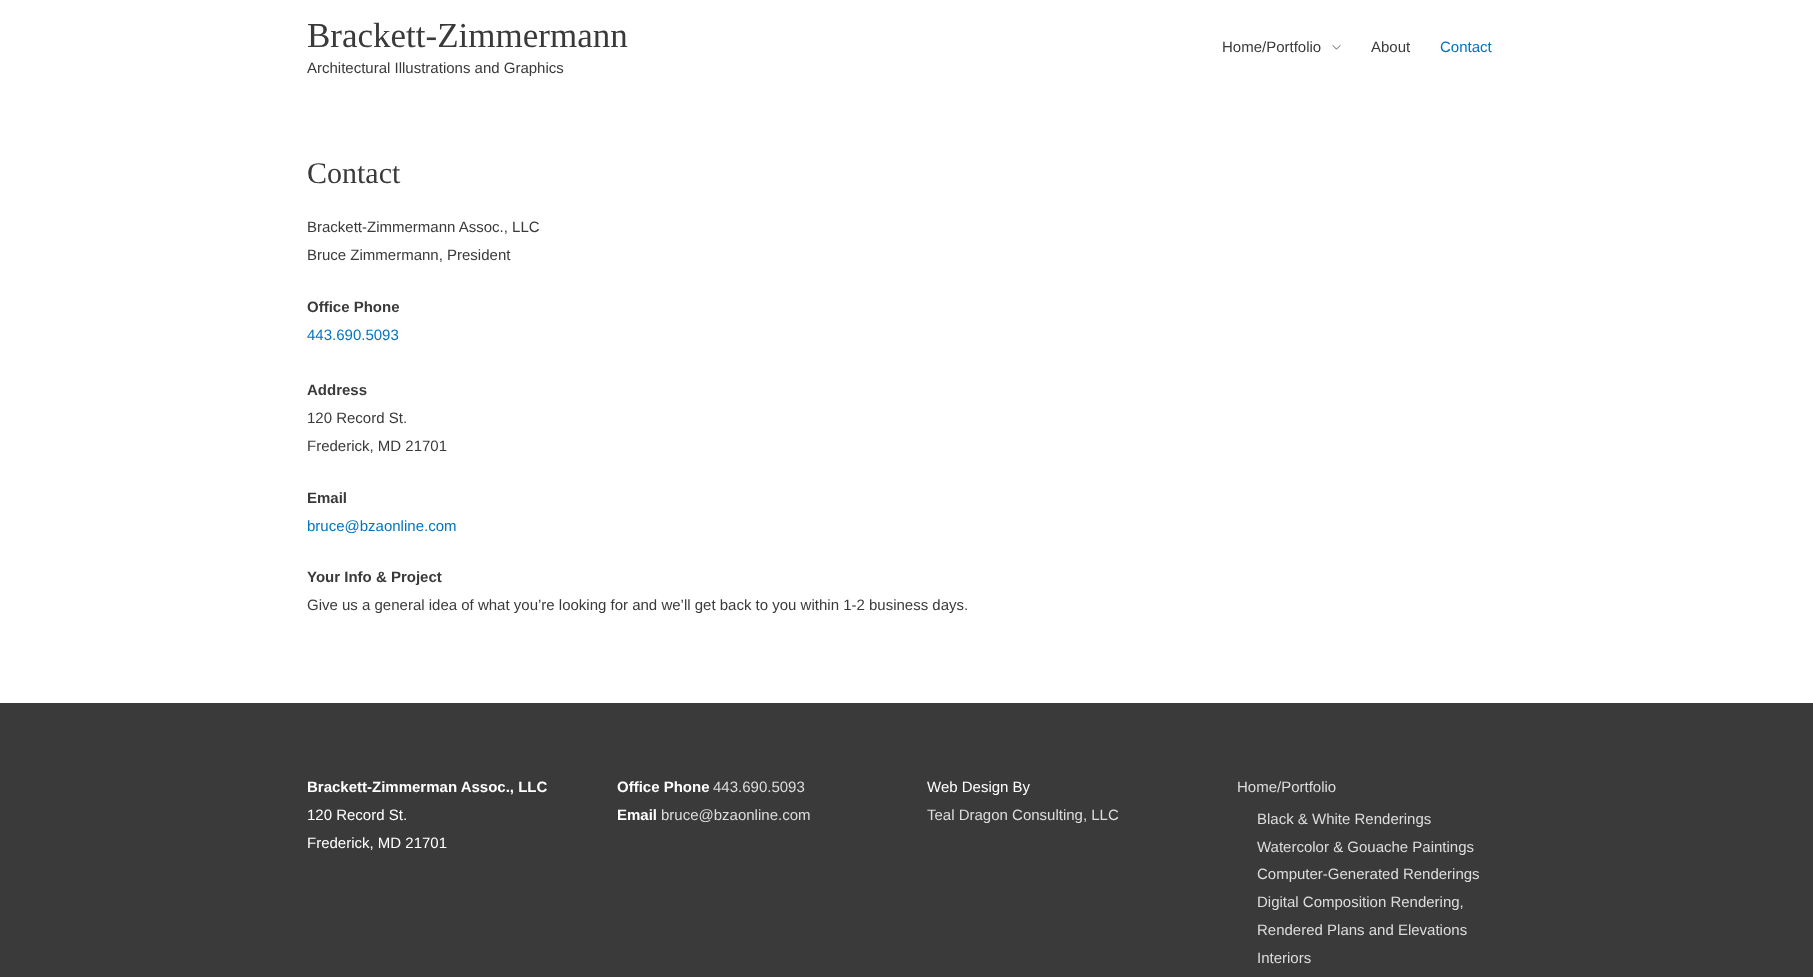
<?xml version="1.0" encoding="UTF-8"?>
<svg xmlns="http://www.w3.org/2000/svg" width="1813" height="977">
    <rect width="100%" height="100%" fill="#FFFFFF"/>
    <text x="307" y="47" font-family="Liberation Serif" font-size="35" fill="#3A3A3A">Brackett-Zimmermann</text>
    <text x="307" y="73" font-family="Liberation Sans" font-size="15" fill="#3A3A3A">Architectural Illustrations and Graphics</text>
    <text x="1222" y="52" font-family="Liberation Sans" font-size="15" fill="#3A3A3A">Home/Portfolio</text>
    <image x="1332" y="45" width="9" height="5" href="img_01.png"/>
    <text x="1371" y="52" font-family="Liberation Sans" font-size="15" fill="#3A3A3A">About</text>
    <text x="1440" y="52" font-family="Liberation Sans" font-size="15" fill="#0274BE">Contact</text>
    <text x="307" y="183" font-family="Liberation Serif" font-size="30" fill="#3A3A3A">Contact</text>
    <text font-family="Liberation Sans" font-size="15" fill="#3A3A3A">
        <tspan x="307" y="232">Brackett-Zimmermann Assoc., LLC</tspan>
        <tspan x="307" y="260">Bruce Zimmermann, President</tspan>
    </text>
    <text x="307" y="312" font-family="Liberation Sans" font-size="15" font-weight="700" fill="#3A3A3A">Office Phone</text>
    <text x="307" y="340" font-family="Liberation Sans" font-size="15" fill="#0274BE">443.690.5093</text>
    <text x="307" y="395" font-family="Liberation Sans" font-size="15" font-weight="700" fill="#3A3A3A">Address</text>
    <text font-family="Liberation Sans" font-size="15" fill="#3A3A3A">
        <tspan x="307" y="423">120 Record St.</tspan>
        <tspan x="307" y="451">Frederick, MD 21701</tspan>
    </text>
    <text x="307" y="503" font-family="Liberation Sans" font-size="15" font-weight="700" fill="#3A3A3A">Email</text>
    <text x="307" y="531" font-family="Liberation Sans" font-size="15" fill="#0274BE">bruce@bzaonline.com</text>
    <text x="307" y="582" font-family="Liberation Sans" font-size="15" font-weight="700" fill="#3A3A3A">Your Info &amp; Project</text>
    <text x="307" y="610" font-family="Liberation Sans" font-size="15" fill="#3A3A3A">Give us a general idea of what you’re looking for and we’ll get back to you within 1-2 business days.</text>
    <rect x="0" y="703" width="1813" height="274" fill="#3A3A3A"/>
    <text x="307" y="792" font-family="Liberation Sans" font-size="15" font-weight="700" fill="#FFFFFF">Brackett-Zimmerman Assoc., LLC</text>
    <text font-family="Liberation Sans" font-size="15" fill="#FFFFFF">
        <tspan x="307" y="820">120 Record St.</tspan>
        <tspan x="307" y="848">Frederick, MD 21701</tspan>
    </text>
    <text x="617" y="792" font-family="Liberation Sans" font-size="15" font-weight="700" fill="#FFFFFF">Office Phone</text>
    <text x="713" y="792" font-family="Liberation Sans" font-size="15" fill="#DDDDDD">443.690.5093</text>
    <text x="617" y="820" font-family="Liberation Sans" font-size="15" font-weight="700" fill="#FFFFFF">Email</text>
    <text x="661" y="820" font-family="Liberation Sans" font-size="15" fill="#DDDDDD">bruce@bzaonline.com</text>
    <text x="927" y="792" font-family="Liberation Sans" font-size="15" fill="#FFFFFF">Web Design By</text>
    <text x="927" y="820" font-family="Liberation Sans" font-size="15" fill="#DDDDDD">Teal Dragon Consulting, LLC</text>
    <text x="1237" y="792" font-family="Liberation Sans" font-size="15" fill="#DDDDDD">Home/Portfolio</text>
    <text font-family="Liberation Sans" font-size="15" fill="#DDDDDD">
        <tspan x="1257" y="824">Black &amp; White Renderings</tspan>
        <tspan x="1257" y="852">Watercolor &amp; Gouache Paintings</tspan>
        <tspan x="1257" y="879">Computer-Generated Renderings</tspan>
        <tspan x="1257" y="907">Digital Composition Rendering,</tspan>
        <tspan x="1257" y="935">Rendered Plans and Elevations</tspan>
        <tspan x="1257" y="963">Interiors</tspan>
    </text>
</svg>
